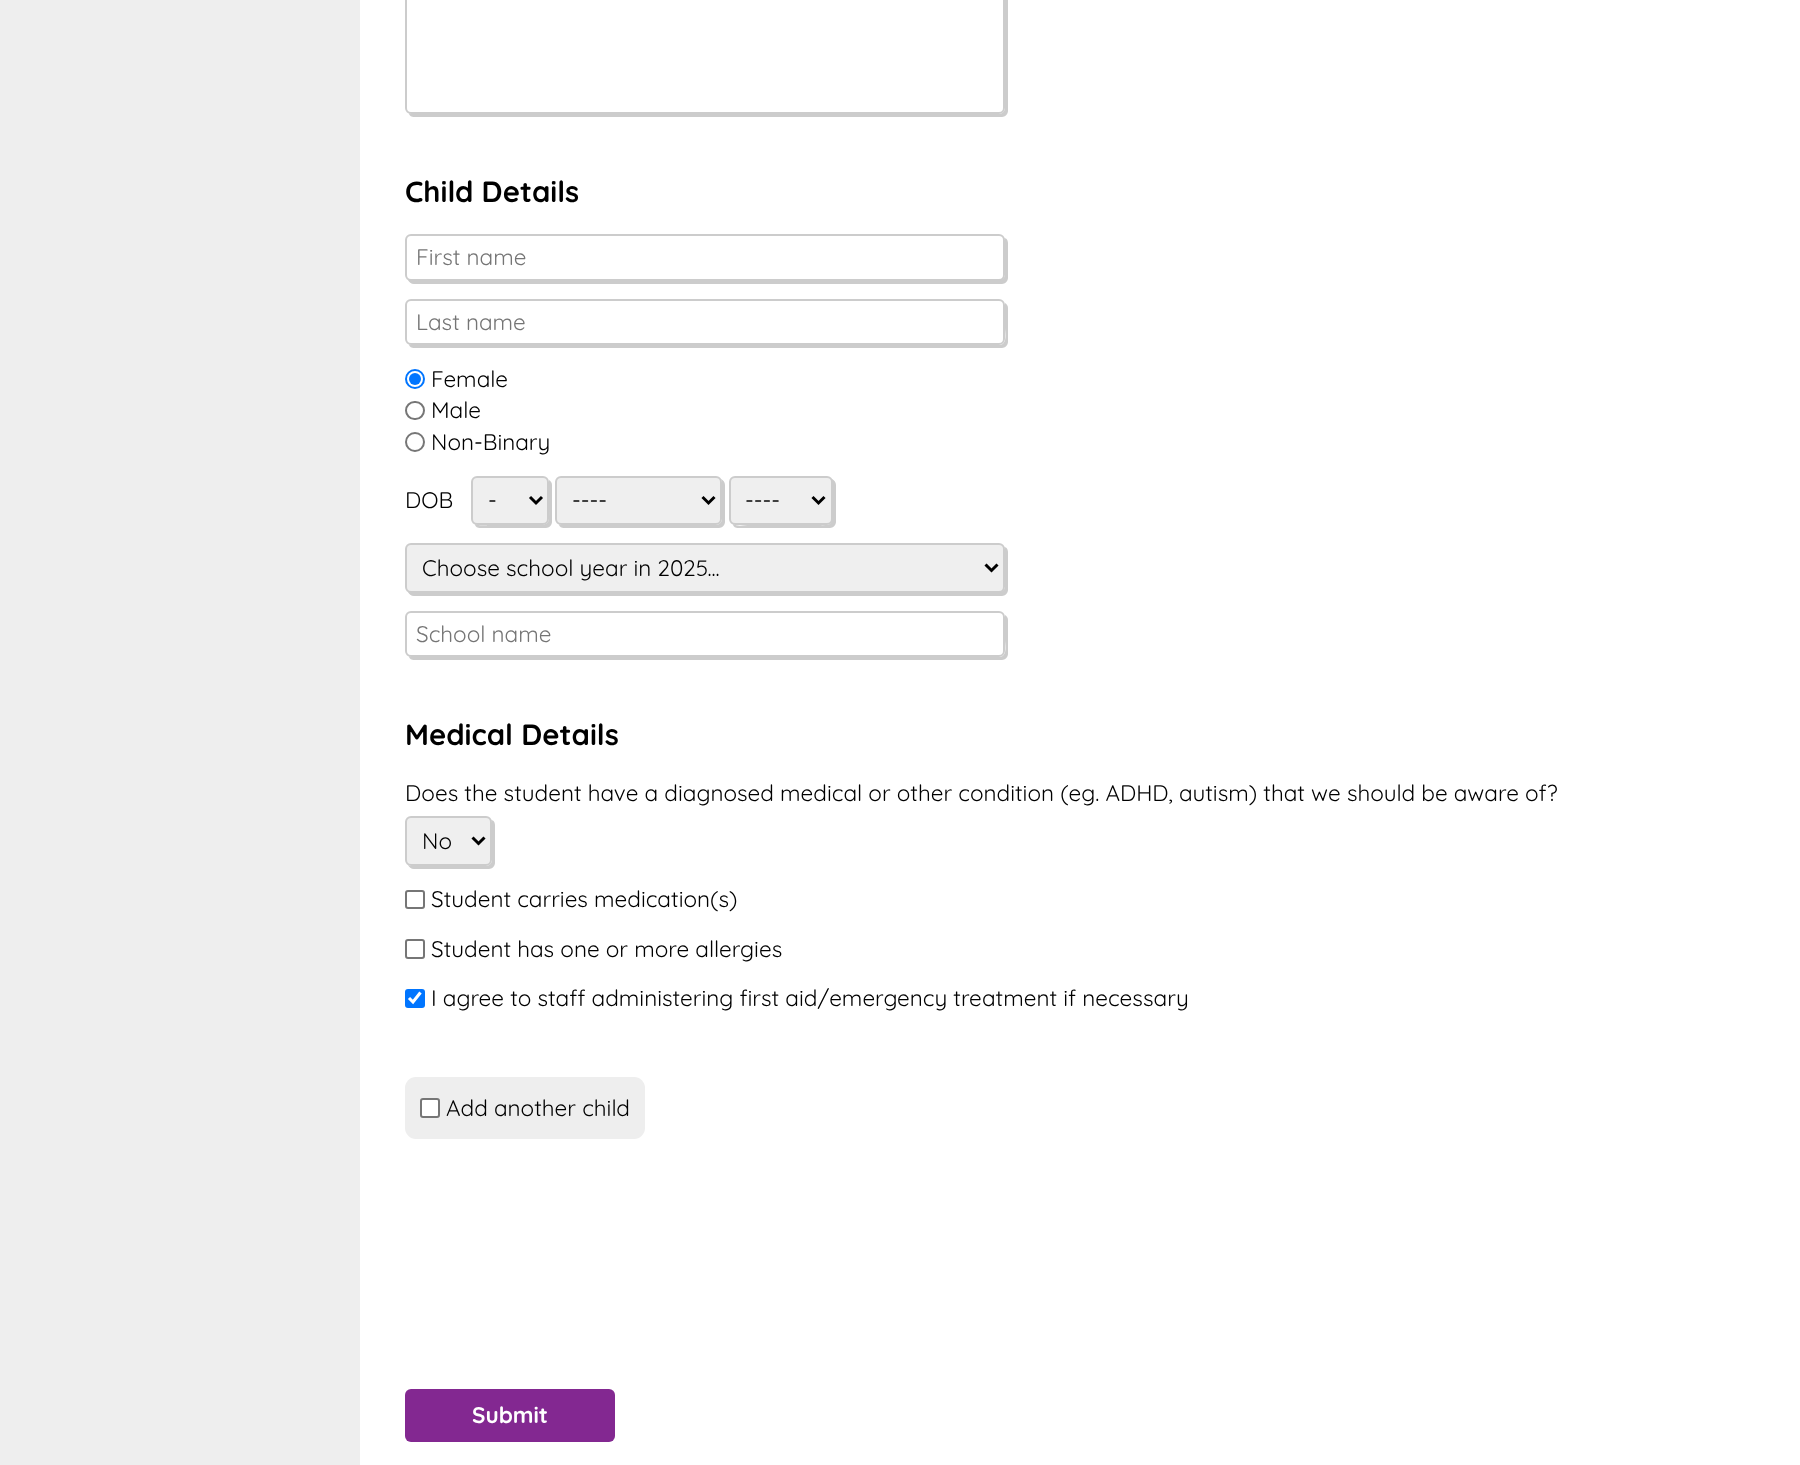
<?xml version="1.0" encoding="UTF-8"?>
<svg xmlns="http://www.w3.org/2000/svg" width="1800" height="1465">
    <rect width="100%" height="100%" fill="#FFFFFF"/>
    <rect x="0" y="0" width="360" height="1465" fill="#EEEEEE"/>
    <path d="M 409 113 C 409 116 412 117 414 117 H 1002 C 1005 117 1008 114 1008 111 V -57 C 1008 -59 1007 -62 1004 -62 L 1005 -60 V 108 C 1005 111 1002 114 999 114 H 411 Z" fill="#CCCCCC"/>
    <rect x="406" y="-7" width="598" height="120" rx="5" fill="#FFFFFF" stroke="#CCCCCC" stroke-width="2"/>
    <text x="405" y="202" font-family="Quicksand" font-size="29.25" font-weight="700" fill="#000000">Child Details</text>
    <path d="M 408 280 C 409 282 411 284 414 284 H 1002 C 1005 284 1008 281 1008 278 V 243 C 1008 241 1007 238 1004 238 L 1005 240 V 274 C 1005 278 1002 280 999 280 H 411 Z" fill="#CCCCCC"/>
    <rect x="406" y="235" width="598" height="45" rx="5" fill="#FFFFFF" stroke="#CCCCCC" stroke-width="2"/>
    <text x="416" y="265" font-family="Quicksand" font-size="22.5" fill="#757575">First name</text>
    <path d="M 409 344 C 409 347 412 348 414 348 H 1002 C 1005 348 1008 345 1008 342 V 308 C 1008 306 1007 304 1005 303 V 328 C 1005 332 1008 345 999 345 H 411 Z" fill="#CCCCCC"/>
    <rect x="406" y="300" width="598" height="44" rx="5" fill="#FFFFFF" stroke="#CCCCCC" stroke-width="2"/>
    <text x="416" y="330" font-family="Quicksand" font-size="22.5" fill="#757575">Last name</text>
    <circle cx="415" cy="379" r="9" fill="none" stroke="#0075FF" stroke-width="2"/>
    <circle cx="415" cy="379" r="6" fill="#0075FF"/>
    <text x="431" y="387" font-family="Quicksand" font-size="22.5" fill="#000000">Female</text>
    <rect x="406" y="402" width="18" height="17" rx="8.5" fill="none" stroke="#767676" stroke-width="2"/>
    <text x="431" y="418" font-family="Quicksand" font-size="22.5" fill="#000000">Male</text>
    <circle cx="415" cy="442" r="9" fill="none" stroke="#767676" stroke-width="2"/>
    <text x="431" y="450" font-family="Quicksand" font-size="22.5" fill="#000000">Non-Binary</text>
    <text x="405" y="508" font-family="Quicksand" font-size="22.5" fill="#000000">DOB</text>
    <path d="M 475 524 C 475 527 478 528 480 528 H 546 C 549 528 552 525 552 522 V 485 C 552 483 551 481 549 480 V 506 C 549 525 551 525 532 525 H 488 C 488 525 478 526 475 524 Z" fill="#CCCCCC"/>
    <rect x="472" y="477" width="76" height="47" rx="5" fill="#EFEFEF" stroke="#CCCCCC" stroke-width="2"/>
    <path d="M 530 497 L 536 503 L 542 497" fill="none" stroke="#000000" stroke-width="3"/>
    <text x="488" y="508" font-family="Quicksand" font-size="22.5" fill="#000000">-</text>
    <path d="M 559 524 C 559 527 562 528 564 528 H 719 C 722 528 725 525 725 522 V 485 C 725 482 723 480 721 479 L 722 482 V 519 C 722 522 719 525 716 525 H 561 Z" fill="#CCCCCC"/>
    <rect x="556" y="477" width="165" height="47" rx="5" fill="#EFEFEF" stroke="#CCCCCC" stroke-width="2"/>
    <path d="M 702.5 497 L 708.5 503 L 714.5 497" fill="none" stroke="#000000" stroke-width="3"/>
    <text x="572" y="508" font-family="Quicksand" font-size="22.5" fill="#000000">----</text>
    <path d="M 733 524 C 733 527 736 528 738 528 H 830 C 833 528 836 525 836 522 V 485 C 836 482 834 480 832 479 V 506 C 832 528 834 525 811 525 H 750 C 744 525 738 527 733 524 Z" fill="#CCCCCC"/>
    <rect x="730" y="477" width="102" height="47" rx="5" fill="#EFEFEF" stroke="#CCCCCC" stroke-width="2"/>
    <path d="M 812.5 497 L 818.5 503 L 824.5 497" fill="none" stroke="#000000" stroke-width="3"/>
    <text x="745" y="508" font-family="Quicksand" font-size="22.5" fill="#000000">----</text>
    <path d="M 408 592 C 409 594 411 596 414 596 H 1002 C 1005 596 1008 593 1008 590 V 552 C 1008 550 1007 547 1004 547 L 1005 549 V 586 C 1005 590 1002 592 999 592 H 411 Z" fill="#CCCCCC"/>
    <rect x="406" y="544" width="598" height="48" rx="5" fill="#EFEFEF" stroke="#CCCCCC" stroke-width="2"/>
    <path d="M 985.5 564.5 L 991.5 570.5 L 997.5 564.5" fill="none" stroke="#000000" stroke-width="3"/>
    <text x="422" y="576" font-family="Quicksand" font-size="22.5" fill="#000000">Choose school year in 2025...</text>
    <path d="M 409 656 C 409 659 412 660 414 660 H 1002 C 1005 660 1008 657 1008 654 V 620 C 1008 618 1007 616 1005 615 V 640 C 1005 644 1008 657 999 657 H 411 Z" fill="#CCCCCC"/>
    <rect x="406" y="612" width="598" height="44" rx="5" fill="#FFFFFF" stroke="#CCCCCC" stroke-width="2"/>
    <text x="416" y="642" font-family="Quicksand" font-size="22.5" fill="#757575">School name</text>
    <text x="405" y="745" font-family="Quicksand" font-size="29.25" font-weight="700" fill="#000000">Medical Details</text>
    <text x="405" y="801" font-family="Quicksand" font-size="22.5" fill="#000000">Does the student have a diagnosed medical or other condition (eg. ADHD, autism) that we should be aware of?</text>
    <path d="M 408 865 C 409 867 411 869 414 869 H 489 C 492 869 495 866 495 863 V 825 C 495 823 494 820 491 820 L 492 822 V 860 C 492 863 489 866 486 866 H 411 Z" fill="#CCCCCC"/>
    <rect x="406" y="817" width="85" height="48" rx="5" fill="#EFEFEF" stroke="#CCCCCC" stroke-width="2"/>
    <path d="M 472.5 837.5 L 478.5 843.5 L 484.5 837.5" fill="none" stroke="#000000" stroke-width="3"/>
    <text x="422" y="849" font-family="Quicksand" font-size="22.5" fill="#000000">No</text>
    <rect x="406" y="891" width="18" height="17" rx="2" fill="none" stroke="#767676" stroke-width="2"/>
    <text x="431" y="907" font-family="Quicksand" font-size="22.5" fill="#000000">Student carries medication(s)</text>
    <rect x="406" y="940" width="18" height="18" rx="2" fill="none" stroke="#767676" stroke-width="2"/>
    <text x="431" y="957" font-family="Quicksand" font-size="22.5" fill="#000000">Student has one or more allergies</text>
    <rect x="405" y="989" width="20" height="19" rx="3" fill="#0075FF"/>
    <path d="M 409 998 L 413 1002 L 420.5 992.5" fill="none" stroke="#FFFFFF" stroke-width="3.1"/>
    <text x="431" y="1006" font-family="Quicksand" font-size="22.5" fill="#000000">I agree to staff administering first aid/emergency treatment if necessary</text>
    <rect x="405" y="1077" width="240" height="62" rx="11" fill="#EEEEEE"/>
    <rect x="421" y="1099" width="18" height="18" rx="2" fill="#FFFFFF" stroke="#767676" stroke-width="2"/>
    <text x="446" y="1116" font-family="Quicksand" font-size="22.5" fill="#000000">Add another child</text>
    <rect x="405" y="1389" width="210" height="53" rx="6" fill="#832891"/>
    <text x="472" y="1423" font-family="Quicksand" font-size="22.5" font-weight="700" fill="#FFFFFF">Submit</text>
</svg>
